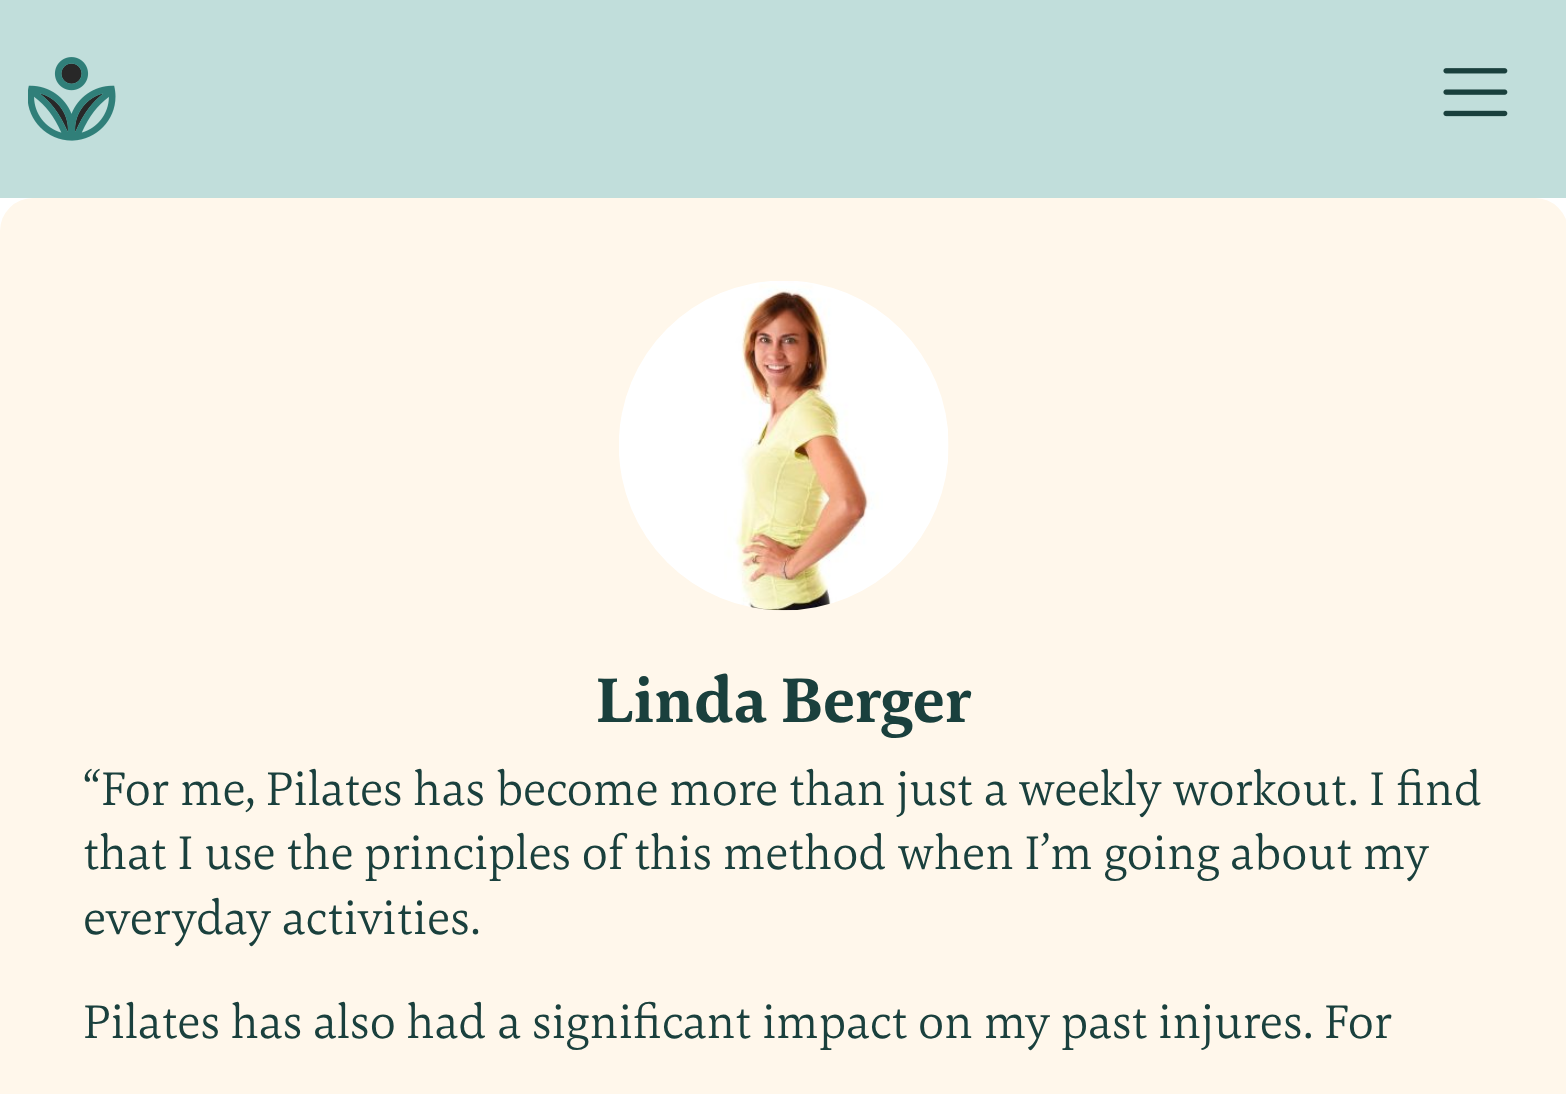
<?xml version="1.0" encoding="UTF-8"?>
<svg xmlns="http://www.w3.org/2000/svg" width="1566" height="1094">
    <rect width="100%" height="100%" fill="#FFFFFF"/>
    <rect x="0" y="0" width="1566" height="198" fill="#C1DEDB"/>
    <image x="28" y="57" width="88" height="84" href="img_01.png"/>
    <image x="1443" y="68" width="65" height="49" href="img_02.png"/>
    <rect x="0" y="198" width="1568" height="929" rx="33" fill="#FFF7EB"/>
    <image x="619" y="281" width="330" height="330" href="img_03.png"/>
    <text x="596" y="722" font-family="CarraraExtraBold" font-size="66" font-weight="800" fill="#1A403D">Linda Berger</text>
    <text font-family="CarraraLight" font-size="49.5" font-weight="300" fill="#1A403D">
        <tspan x="83" y="805">“For me, Pilates has become more than just a weekly workout. I find</tspan>
        <tspan x="83" y="869">that I use the principles of this method when I’m going about my</tspan>
        <tspan x="83" y="934">everyday activities.</tspan>
    </text>
    <text x="83" y="1038" font-family="CarraraLight" font-size="49.5" font-weight="300" fill="#1A403D">Pilates has also had a significant impact on my past injures. For</text>
</svg>
